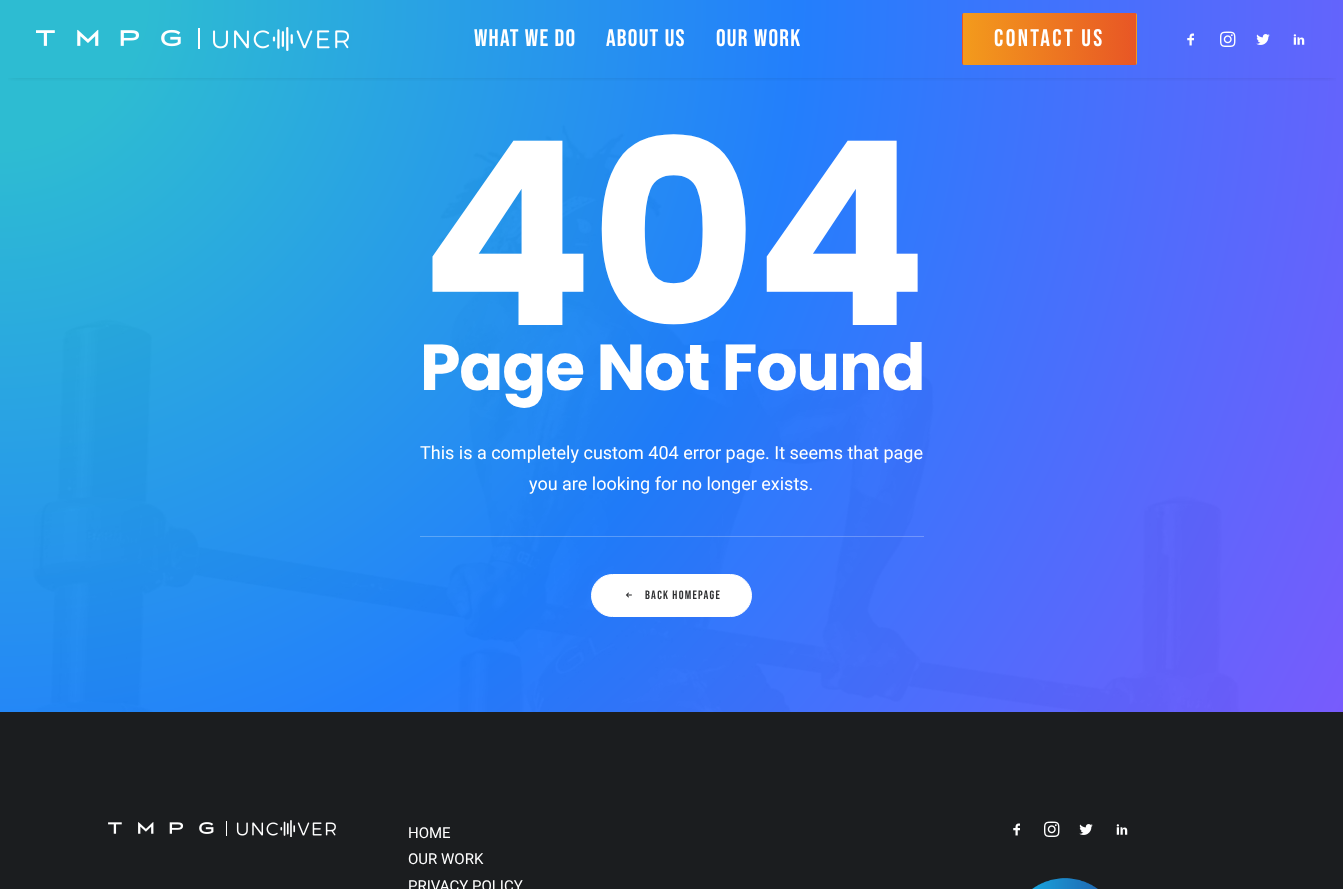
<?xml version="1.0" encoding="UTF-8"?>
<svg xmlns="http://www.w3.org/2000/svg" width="1343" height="889">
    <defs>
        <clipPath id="clip1"><rect x="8" y="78" width="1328" height="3"/></clipPath>
        <filter id="blur1" x="-50%" y="-200%" width="200%" height="500%"><feGaussianBlur stdDeviation="5"/></filter>
        <clipPath id="clip2"><rect x="962" y="13" width="175" height="52" rx="2"/></clipPath>
        <linearGradient id="g1" gradientUnits="userSpaceOnUse" x1="790" y1="39" x2="963" y2="39"><stop offset="0" stop-color="#F39B1C"/><stop offset="1" stop-color="#E85625"/></linearGradient>
        <linearGradient id="g2" gradientUnits="userSpaceOnUse" x1="963" y1="39" x2="1136" y2="39"><stop offset="0" stop-color="#F39B1C"/><stop offset="1" stop-color="#E85625"/></linearGradient>
        <linearGradient id="g3" gradientUnits="userSpaceOnUse" x1="1136" y1="39" x2="1309" y2="39"><stop offset="0" stop-color="#F39B1C"/><stop offset="1" stop-color="#E85625"/></linearGradient>
    </defs>
    <rect width="100%" height="100%" fill="#FFFFFF"/>
    <image x="0" y="0" width="1343" height="712" href="img_06.png"/>
    <g clip-path="url(#clip1)">
        <rect x="10" y="14" width="1324" height="58" fill="#000000" fill-opacity="0.6" filter="url(#blur1)"/>
    </g>
    <image x="36" y="27" width="313" height="24" href="img_01.png"/>
    <text x="474" y="46" font-family="Bebas Neue" font-size="24" letter-spacing="1.25" fill="#FFFFFF">WHAT WE DO</text>
    <text x="606" y="46" font-family="Bebas Neue" font-size="24" letter-spacing="1.25" fill="#FFFFFF">ABOUT US</text>
    <text x="716" y="46" font-family="Bebas Neue" font-size="24" letter-spacing="1.25" fill="#FFFFFF">OUR WORK</text>
    <g clip-path="url(#clip2)">
        <rect x="962" y="13" width="1" height="52" fill="url(#g1)"/>
        <rect x="963" y="13" width="173" height="52" fill="url(#g2)"/>
        <rect x="1136" y="13" width="1" height="52" fill="url(#g3)"/>
    </g>
    <text x="994" y="46" font-family="Bebas Neue" font-size="24" letter-spacing="2.4" fill="#FFFFFF">CONTACT US</text>
    <image x="1187" y="33" width="7" height="13" href="img_02.png"/>
    <image x="1220" y="31" width="16" height="16" href="img_03.png"/>
    <image x="1256" y="34" width="14" height="11" href="img_04.png"/>
    <image x="1293" y="34" width="12" height="11" href="img_05.png"/>
    <text x="420" y="325" font-family="Poppins" font-size="256" font-weight="700" letter-spacing="-3" fill="#FFFFFF">404</text>
    <text x="420" y="390" font-family="Poppins" font-size="65" font-weight="700" letter-spacing="-1.25" fill="#FFFFFF">Page Not Found</text>
    <text x="420" y="459" font-family="Roboto" font-size="18" fill="#FFFFFF">This is a completely custom 404 error page. It seems that page</text>
    <text x="529" y="490" font-family="Roboto" font-size="18" fill="#FFFFFF">you are looking for no longer exists.</text>
    <rect x="420" y="536" width="504" height="1" fill="#FFFFFF" fill-opacity="0.25"/>
    <rect x="591.5" y="574.5" width="160" height="42" rx="21" fill="#FFFFFF" stroke="#FFFFFF"/>
    <image x="625" y="592" width="7" height="6" href="img_07.png"/>
    <text x="645" y="599" font-family="Bebas Neue" font-size="12" letter-spacing="1.25" fill="#303133">BACK HOMEPAGE</text>
    <rect x="0" y="712" width="1343" height="177" fill="#1B1D1F"/>
    <image x="108" y="820" width="228" height="17" href="img_08.png"/>
    <text font-family="Roboto" font-size="15" fill="#FFFFFF">
        <tspan x="408" y="838">HOME</tspan>
        <tspan x="408" y="864">OUR WORK</tspan>
        <tspan x="408" y="891">PRIVACY POLICY</tspan>
    </text>
    <image x="1013" y="823" width="7" height="13" href="img_09.png"/>
    <image x="1044" y="821" width="16" height="16" href="img_10.png"/>
    <image x="1079" y="824" width="14" height="11" href="img_11.png"/>
    <image x="1116" y="824" width="12" height="11" href="img_12.png"/>
    <image x="1032" y="878" width="66" height="11" href="img_13.png"/>
</svg>
